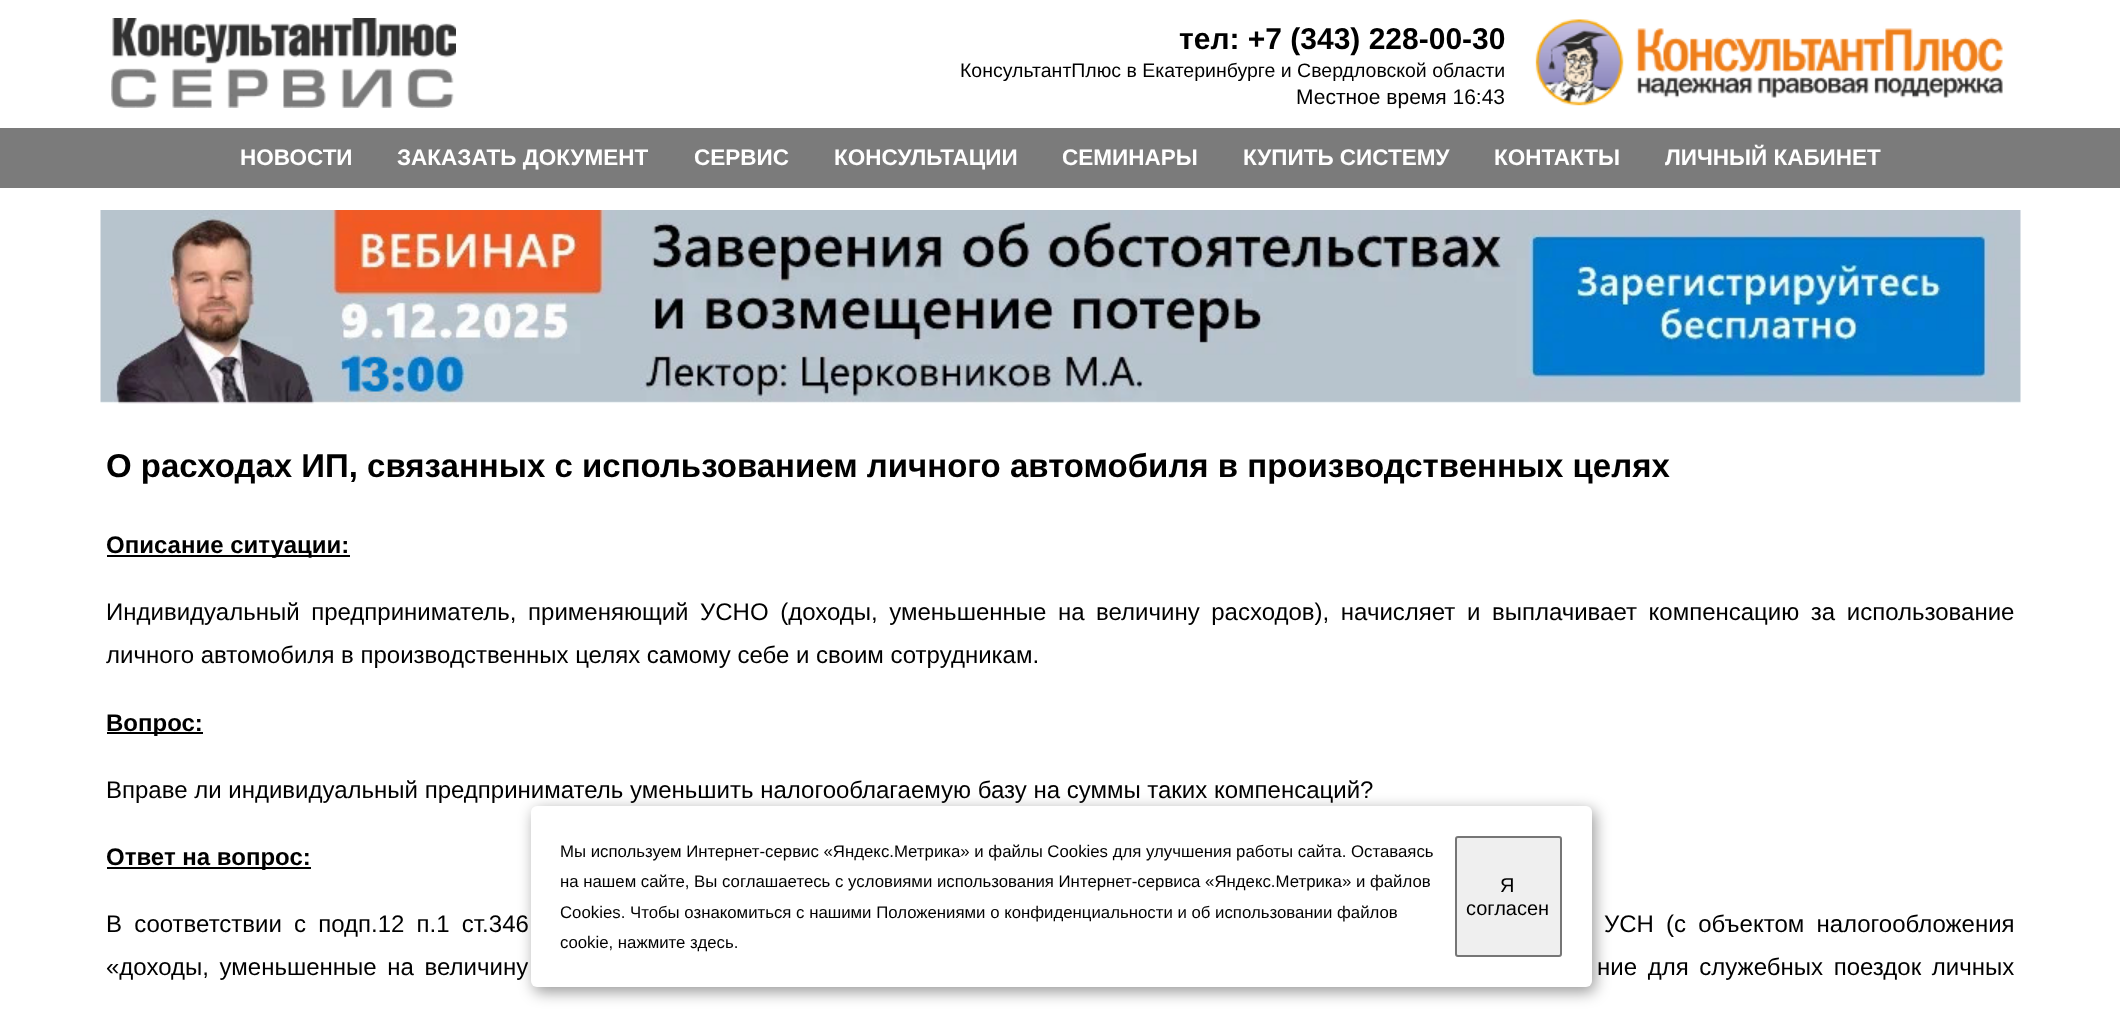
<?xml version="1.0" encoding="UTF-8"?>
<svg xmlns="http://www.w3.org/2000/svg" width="2120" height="1009">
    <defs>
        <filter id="blur1" x="-50%" y="-200%" width="200%" height="500%"><feGaussianBlur stdDeviation="7.5"/></filter>
    </defs>
    <rect width="100%" height="100%" fill="#FFFFFF"/>
    <image x="111" y="18" width="345" height="90" href="img_01.png"/>
    <text x="1179" y="49" font-family="Liberation Sans" font-size="30" font-weight="700" fill="#000000">тел: +7 (343) 228-00-30</text>
    <text x="960" y="77" font-family="Liberation Sans" font-size="19.5" fill="#000000">КонсультантПлюс в Екатеринбурге и Свердловской области</text>
    <text x="1296" y="104" font-family="Liberation Sans" font-size="21" fill="#000000">Местное время 16:43</text>
    <image x="1535" y="19" width="468" height="87" href="img_02.png"/>
    <rect x="0" y="128" width="2120" height="60" fill="#7B7B7B"/>
    <text x="240" y="165" font-family="Liberation Sans" font-size="22.5" font-weight="700" fill="#FFFFFF">НОВОСТИ</text>
    <text x="397" y="165" font-family="Liberation Sans" font-size="22.5" font-weight="700" fill="#FFFFFF">ЗАКАЗАТЬ ДОКУМЕНТ</text>
    <text x="694" y="165" font-family="Liberation Sans" font-size="22.5" font-weight="700" fill="#FFFFFF">СЕРВИС</text>
    <text x="834" y="165" font-family="Liberation Sans" font-size="22.5" font-weight="700" fill="#FFFFFF">КОНСУЛЬТАЦИИ</text>
    <text x="1062" y="165" font-family="Liberation Sans" font-size="22.5" font-weight="700" fill="#FFFFFF">СЕМИНАРЫ</text>
    <text x="1243" y="165" font-family="Liberation Sans" font-size="22.5" font-weight="700" fill="#FFFFFF">КУПИТЬ СИСТЕМУ</text>
    <text x="1494" y="165" font-family="Liberation Sans" font-size="22.5" font-weight="700" fill="#FFFFFF">КОНТАКТЫ</text>
    <text x="1665" y="165" font-family="Liberation Sans" font-size="22.5" font-weight="700" fill="#FFFFFF">ЛИЧНЫЙ КАБИНЕТ</text>
    <image x="100" y="210" width="1921" height="194" href="img_03.png"/>
    <text x="106" y="477" font-family="Liberation Sans" font-size="33" font-weight="700" fill="#000000">О расходах ИП, связанных с использованием личного автомобиля в производственных целях</text>
    <rect x="107" y="555" width="243" height="2" fill="#000000"/>
    <text x="106" y="553" font-family="Liberation Sans" font-size="24" font-weight="700" fill="#000000">Описание ситуации:</text>
    <text font-family="Liberation Sans" font-size="24" fill="#000000">
        <tspan x="106" y="620" word-spacing="4.9">Индивидуальный предприниматель, применяющий УСНО (доходы, уменьшенные на величину расходов), начисляет и выплачивает компенсацию за использование</tspan>
        <tspan x="106" y="663">личного автомобиля в производственных целях самому себе и своим сотрудникам.</tspan>
    </text>
    <rect x="107" y="732" width="96" height="2" fill="#000000"/>
    <text x="106" y="731" font-family="Liberation Sans" font-size="24" font-weight="700" fill="#000000">Вопрос:</text>
    <text x="106" y="798" font-family="Liberation Sans" font-size="24" fill="#000000">Вправе ли индивидуальный предприниматель уменьшить налогооблагаемую базу на суммы таких компенсаций?</text>
    <rect x="107" y="867" width="204" height="2" fill="#000000"/>
    <text x="106" y="865" font-family="Liberation Sans" font-size="24" font-weight="700" fill="#000000">Ответ на вопрос:</text>
    <text x="106" y="932" word-spacing="5.5" font-family="Liberation Sans" font-size="24" fill="#000000">В соответствии с подп.12 п.1 ст.346</text>
    <text x="1604" y="932" word-spacing="5.5" font-family="Liberation Sans" font-size="24" fill="#000000">УСН (с объектом налогообложения</text>
    <text x="106" y="975" word-spacing="4" font-family="Liberation Sans" font-size="24" fill="#000000">«доходы, уменьшенные на величину</text>
    <text x="1597" y="975" word-spacing="4" font-family="Liberation Sans" font-size="24" fill="#000000">ние для служебных поездок личных</text>
    <rect x="534" y="810" width="1061" height="182" rx="6" fill="#000000" fill-opacity="0.4" filter="url(#blur1)"/>
    <rect x="531" y="806" width="1061" height="181" rx="6" fill="#FFFFFF"/>
    <text font-family="Liberation Sans" font-size="16.8" fill="#000000">
        <tspan x="560" y="857">Мы используем Интернет-сервис «Яндекс.Метрика» и файлы Cookies для улучшения работы сайта. Оставаясь</tspan>
        <tspan x="560" y="887">на нашем сайте, Вы соглашаетесь с условиями использования Интернет-сервиса «Яндекс.Метрика» и файлов</tspan>
        <tspan x="560" y="918">Cookies. Чтобы ознакомиться с нашими Положениями о конфиденциальности и об использовании файлов</tspan>
        <tspan x="560" y="948">cookie, нажмите здесь.</tspan>
    </text>
    <rect x="1456" y="837" width="105" height="119" rx="2" fill="#EFEFEF" stroke="#767676" stroke-width="2"/>
    <text x="1500" y="892" font-family="Liberation Sans" font-size="20" fill="#000000">Я</text>
    <text x="1466" y="915" font-family="Liberation Sans" font-size="20" fill="#000000">согласен</text>
</svg>
